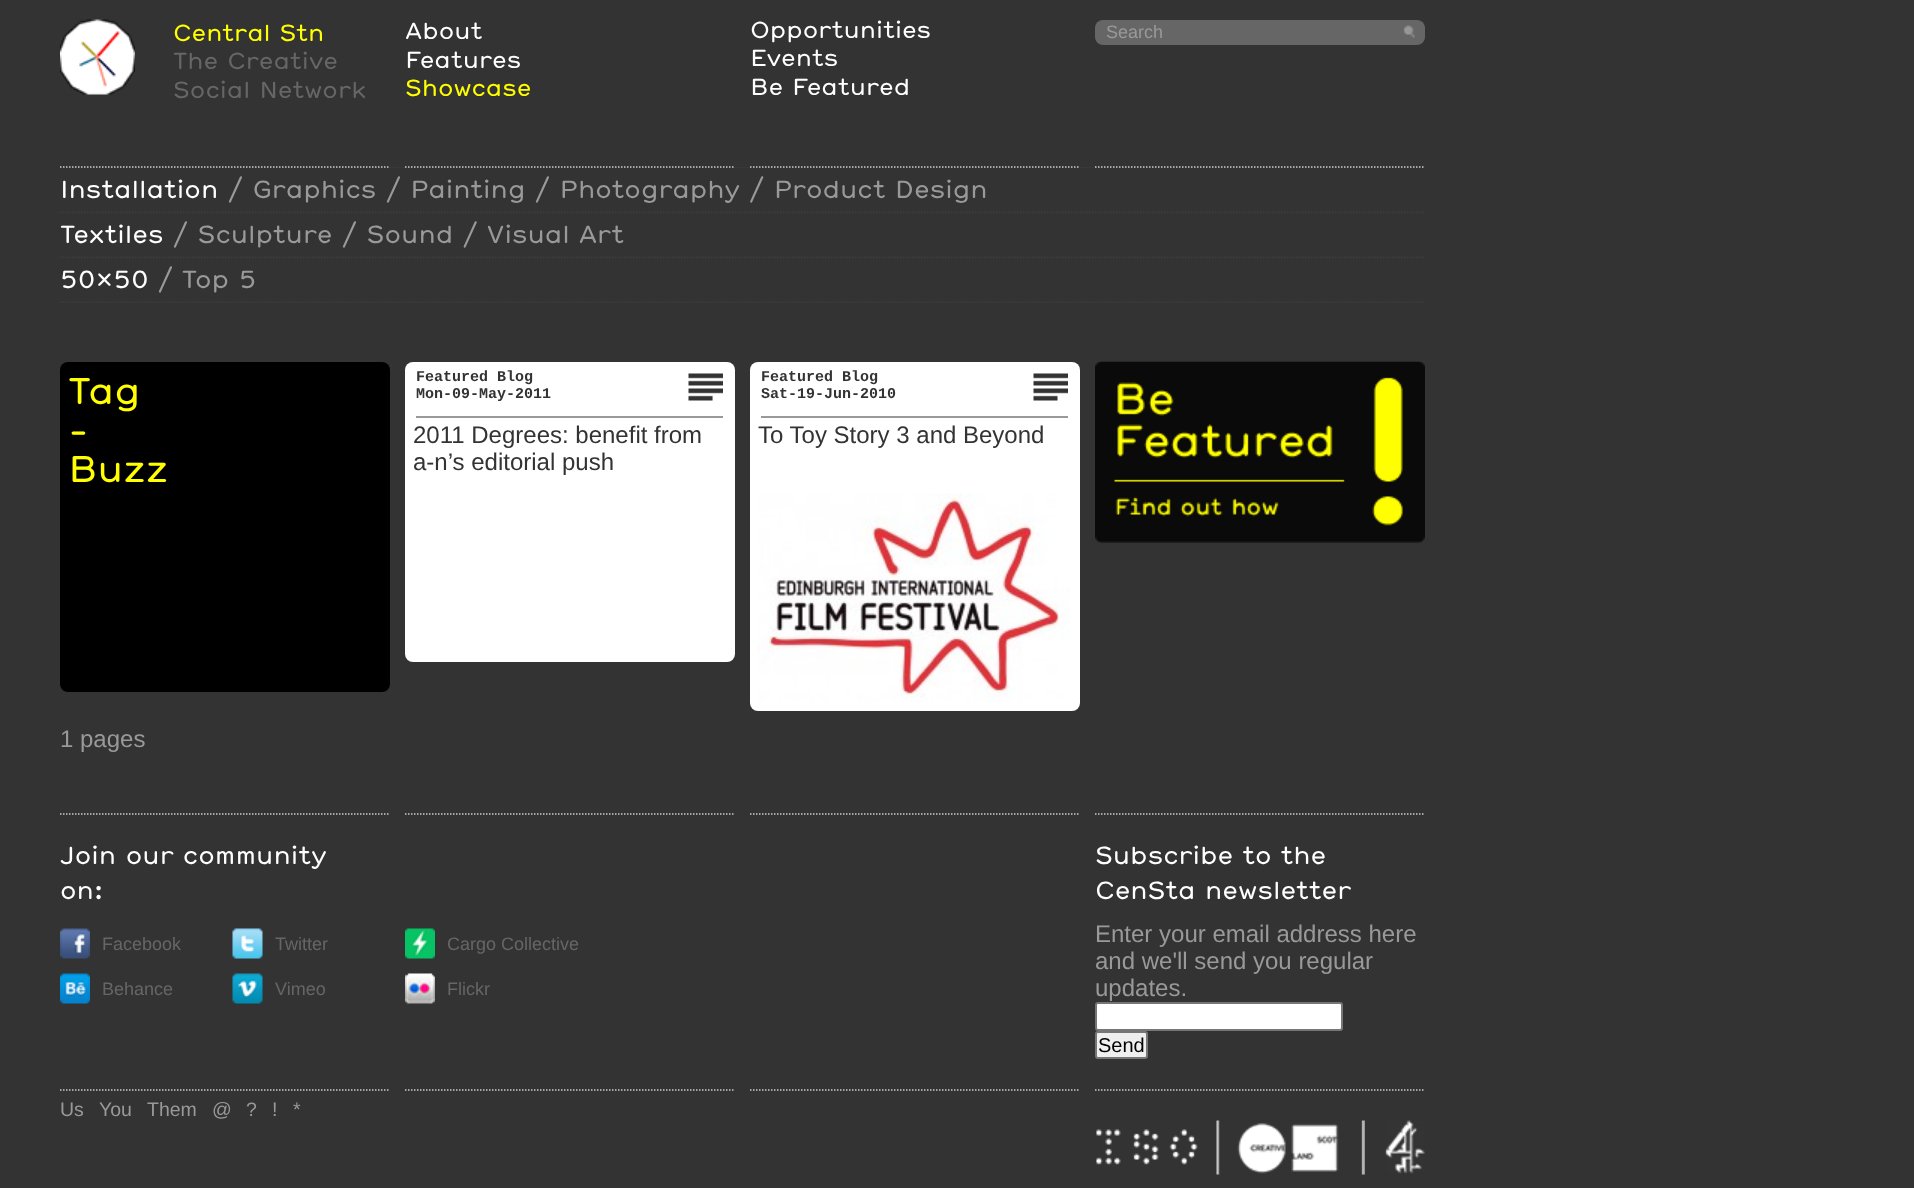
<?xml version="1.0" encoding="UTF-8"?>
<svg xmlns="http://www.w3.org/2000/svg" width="1914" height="1188">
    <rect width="100%" height="100%" fill="#333333"/>
    <image x="60" y="167" width="1364" height="136" href="img_03.png"/>
    <path d="M 60 167 H 390" fill="none" stroke="#CCCCCC" stroke-width="1.5" stroke-dasharray="1.5 1.5"/>
    <image x="60" y="19" width="75" height="76" href="img_01.png"/>
    <text x="173" y="41" font-family="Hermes" font-size="22.5" fill="#FFFF00">Central Stn</text>
    <text font-family="Hermes" font-size="22.5" fill="#666666">
        <tspan x="173" y="69">The Creative</tspan>
        <tspan x="173" y="98">Social Network</tspan>
    </text>
    <path d="M 405 167 H 735" fill="none" stroke="#CCCCCC" stroke-width="1.5" stroke-dasharray="1.5 1.5"/>
    <text font-family="Hermes" font-size="22.5" fill="#FFFFFF">
        <tspan x="405" y="39">About</tspan>
        <tspan x="405" y="68">Features</tspan>
    </text>
    <text x="405" y="96" font-family="Hermes" font-size="22.5" fill="#FFFF00">Showcase</text>
    <path d="M 750 167 H 1080" fill="none" stroke="#CCCCCC" stroke-width="1.5" stroke-dasharray="1.5 1.5"/>
    <text font-family="Hermes" font-size="22.5" fill="#FFFFFF">
        <tspan x="750" y="38">Opportunities</tspan>
        <tspan x="750" y="66">Events</tspan>
        <tspan x="750" y="95">Be Featured</tspan>
    </text>
    <path d="M 1095 167 H 1425" fill="none" stroke="#CCCCCC" stroke-width="1.5" stroke-dasharray="1.5 1.5"/>
    <rect x="1095" y="20" width="330" height="25" rx="8" fill="#666666"/>
    <text x="1106" y="38" font-family="Liberation Sans" font-size="18" fill="#999999">Search</text>
    <image x="1403" y="25" width="12" height="13" href="img_02.png"/>
    <text x="60" y="198" font-family="Hermes" font-size="24" fill="#FFFFFF">Installation</text>
    <text x="228" y="198" font-family="Hermes" font-size="24" fill="#999999">/ Graphics / Painting / Photography / Product Design</text>
    <text x="60" y="243" font-family="Hermes" font-size="24" fill="#FFFFFF">Textiles</text>
    <text x="173" y="243" font-family="Hermes" font-size="24" fill="#999999">/ Sculpture / Sound / Visual Art</text>
    <text x="60" y="288" font-family="Hermes" font-size="24" fill="#FFFFFF">50x50</text>
    <text x="158" y="288" font-family="Hermes" font-size="24" fill="#999999">/ Top 5</text>
    <rect x="60" y="362" width="330" height="330" rx="8" fill="#000000"/>
    <text font-family="Hermes" font-size="36" fill="#FFFF00">
        <tspan x="68" y="404">Tag</tspan>
        <tspan x="68" y="443">-</tspan>
        <tspan x="68" y="482">Buzz</tspan>
    </text>
    <rect x="405" y="362" width="330" height="300" rx="8" fill="#FFFFFF"/>
    <rect x="416" y="416" width="307" height="2" fill="#999999"/>
    <text font-family="Liberation Mono" font-size="15" font-weight="700" fill="#333333">
        <tspan x="416" y="381">Featured Blog</tspan>
        <tspan x="416" y="398">Mon-09-May-2011</tspan>
    </text>
    <image x="688" y="373" width="35" height="28" href="img_04.png"/>
    <text font-family="Liberation Sans" font-size="24" fill="#333333">
        <tspan x="413" y="443">2011 Degrees: benefit from</tspan>
        <tspan x="413" y="470">a-n’s editorial push</tspan>
    </text>
    <rect x="750" y="362" width="330" height="349" rx="8" fill="#FFFFFF"/>
    <rect x="761" y="416" width="307" height="2" fill="#999999"/>
    <text font-family="Liberation Mono" font-size="15" font-weight="700" fill="#333333">
        <tspan x="761" y="381">Featured Blog</tspan>
        <tspan x="761" y="398">Sat-19-Jun-2010</tspan>
    </text>
    <image x="1033" y="373" width="35" height="28" href="img_05.png"/>
    <text x="758" y="443" font-family="Liberation Sans" font-size="24" fill="#333333">To Toy Story 3 and Beyond</text>
    <image x="758" y="493" width="312" height="209" href="img_06.png"/>
    <text x="60" y="747" font-family="Liberation Sans" font-size="24" fill="#999999">1 pages</text>
    <image x="1095" y="361" width="330" height="182" href="img_07.png"/>
    <path d="M 60 814 H 390" fill="none" stroke="#CCCCCC" stroke-width="1.5" stroke-dasharray="1.5 1.5"/>
    <path d="M 405 814 H 735" fill="none" stroke="#CCCCCC" stroke-width="1.5" stroke-dasharray="1.5 1.5"/>
    <path d="M 750 814 H 1080" fill="none" stroke="#CCCCCC" stroke-width="1.5" stroke-dasharray="1.5 1.5"/>
    <path d="M 1095 814 H 1425" fill="none" stroke="#CCCCCC" stroke-width="1.5" stroke-dasharray="1.5 1.5"/>
    <text font-family="Hermes" font-size="24" fill="#FFFFFF">
        <tspan x="60" y="864">Join our community</tspan>
        <tspan x="60" y="899">on:</tspan>
    </text>
    <image x="60" y="928" width="30" height="31" href="img_08.png"/>
    <text x="102" y="950" font-family="Liberation Sans" font-size="18" fill="#666666">Facebook</text>
    <image x="232" y="928" width="31" height="31" href="img_09.png"/>
    <text x="275" y="950" font-family="Liberation Sans" font-size="18" fill="#666666">Twitter</text>
    <image x="405" y="928" width="30" height="31" href="img_10.png"/>
    <text x="447" y="950" font-family="Liberation Sans" font-size="18" fill="#666666">Cargo Collective</text>
    <image x="60" y="973" width="30" height="31" href="img_11.png"/>
    <text x="102" y="995" font-family="Liberation Sans" font-size="18" fill="#666666">Behance</text>
    <image x="232" y="973" width="31" height="31" href="img_12.png"/>
    <text x="275" y="995" font-family="Liberation Sans" font-size="18" fill="#666666">Vimeo</text>
    <image x="405" y="973" width="30" height="31" href="img_13.png"/>
    <text x="447" y="995" font-family="Liberation Sans" font-size="18" fill="#666666">Flickr</text>
    <text font-family="Hermes" font-size="24" fill="#FFFFFF">
        <tspan x="1095" y="864">Subscribe to the</tspan>
        <tspan x="1095" y="899">CenSta newsletter</tspan>
    </text>
    <text font-family="Liberation Sans" font-size="24" fill="#999999">
        <tspan x="1095" y="942">Enter your email address here</tspan>
        <tspan x="1095" y="969">and we'll send you regular</tspan>
        <tspan x="1095" y="996">updates.</tspan>
    </text>
    <rect x="1096" y="1003" width="246" height="27" rx="2" fill="#FFFFFF" stroke="#767676" stroke-width="2"/>
    <rect x="1096" y="1032" width="51" height="26" rx="2" fill="#EFEFEF" stroke="#767676" stroke-width="2"/>
    <text x="1098" y="1052" font-family="Liberation Sans" font-size="20" fill="#000000">Send</text>
    <path d="M 60 1090 H 390" fill="none" stroke="#CCCCCC" stroke-width="1.5" stroke-dasharray="1.5 1.5"/>
    <path d="M 405 1090 H 735" fill="none" stroke="#CCCCCC" stroke-width="1.5" stroke-dasharray="1.5 1.5"/>
    <path d="M 750 1090 H 1080" fill="none" stroke="#CCCCCC" stroke-width="1.5" stroke-dasharray="1.5 1.5"/>
    <path d="M 1095 1090 H 1425" fill="none" stroke="#CCCCCC" stroke-width="1.5" stroke-dasharray="1.5 1.5"/>
    <text x="60" y="1116" font-family="Liberation Sans" font-size="19.5" fill="#999999">Us</text>
    <text x="99" y="1116" font-family="Liberation Sans" font-size="19.5" fill="#999999">You</text>
    <text x="147" y="1116" font-family="Liberation Sans" font-size="19.5" fill="#999999">Them</text>
    <text x="212" y="1116" font-family="Liberation Sans" font-size="19.5" fill="#999999">@</text>
    <text x="246" y="1116" font-family="Liberation Sans" font-size="19.5" fill="#999999">?</text>
    <text x="272" y="1116" font-family="Liberation Sans" font-size="19.5" fill="#999999">!</text>
    <text x="293" y="1116" font-family="Liberation Sans" font-size="19.5" fill="#999999">*</text>
    <image x="1096" y="1120" width="124" height="55" href="img_14.png"/>
    <image x="1219" y="1120" width="146" height="55" href="img_15.png"/>
    <image x="1385" y="1120" width="40" height="54" href="img_16.png"/>
</svg>
